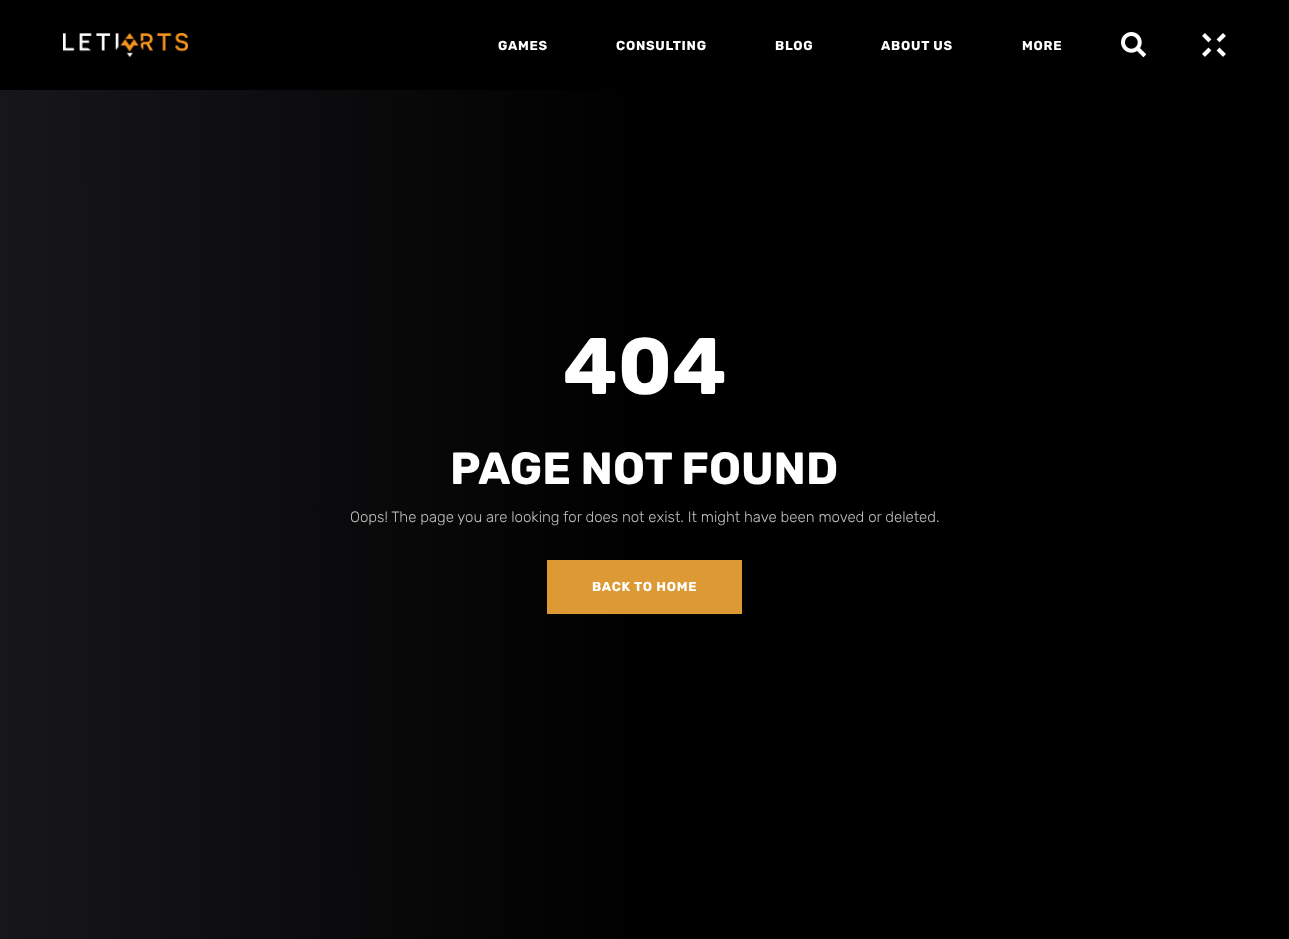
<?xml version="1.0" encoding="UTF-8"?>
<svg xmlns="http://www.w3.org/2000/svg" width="1289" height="939">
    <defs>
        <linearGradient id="g1" gradientUnits="userSpaceOnUse" x1="0" y1="470" x2="1289" y2="469"><stop offset="0" stop-color="#17161A"/><stop offset="0.5" stop-color="#000000"/><stop offset="1" stop-color="#000000"/></linearGradient>
    </defs>
    <rect width="100%" height="100%" fill="#FFFFFF"/>
    <rect x="0" y="0" width="1289" height="90" fill="#000000"/>
    <image x="63" y="33" width="125" height="24" href="img_01.png"/>
    <text x="498" y="50" font-family="Rubik" font-size="13" font-weight="700" letter-spacing="0.75" fill="#FFFFFF">GAMES</text>
    <text x="616" y="50" font-family="Rubik" font-size="13" font-weight="700" letter-spacing="0.75" fill="#FFFFFF">CONSULTING</text>
    <text x="775" y="50" font-family="Rubik" font-size="13" font-weight="700" letter-spacing="0.75" fill="#FFFFFF">BLOG</text>
    <text x="881" y="50" font-family="Rubik" font-size="13" font-weight="700" letter-spacing="0.75" fill="#FFFFFF">ABOUT US</text>
    <text x="1022" y="50" font-family="Rubik" font-size="13" font-weight="700" letter-spacing="0.75" fill="#FFFFFF">MORE</text>
    <image x="1121" y="32" width="25" height="26" href="img_02.png"/>
    <image x="1202" y="33" width="24" height="24" href="img_03.png"/>
    <rect x="0" y="90" width="1289" height="849" fill="url(#g1)"/>
    <text x="563" y="394" font-family="Rubik" font-size="80" font-weight="700" fill="#FFFFFF">404</text>
    <text x="450" y="484" font-family="Rubik" font-size="45" font-weight="700" fill="#FFFFFF">PAGE NOT FOUND</text>
    <text x="350" y="522" font-family="Rubik" font-size="15" font-weight="300" fill="#C0C0C0">Oops! The page you are looking for does not exist. It might have been moved or deleted.</text>
    <rect x="547" y="560" width="195" height="54" fill="#DD9933"/>
    <text x="592" y="591" font-family="Rubik" font-size="13" font-weight="700" letter-spacing="0.75" fill="#FFFFFF">BACK TO HOME</text>
</svg>
